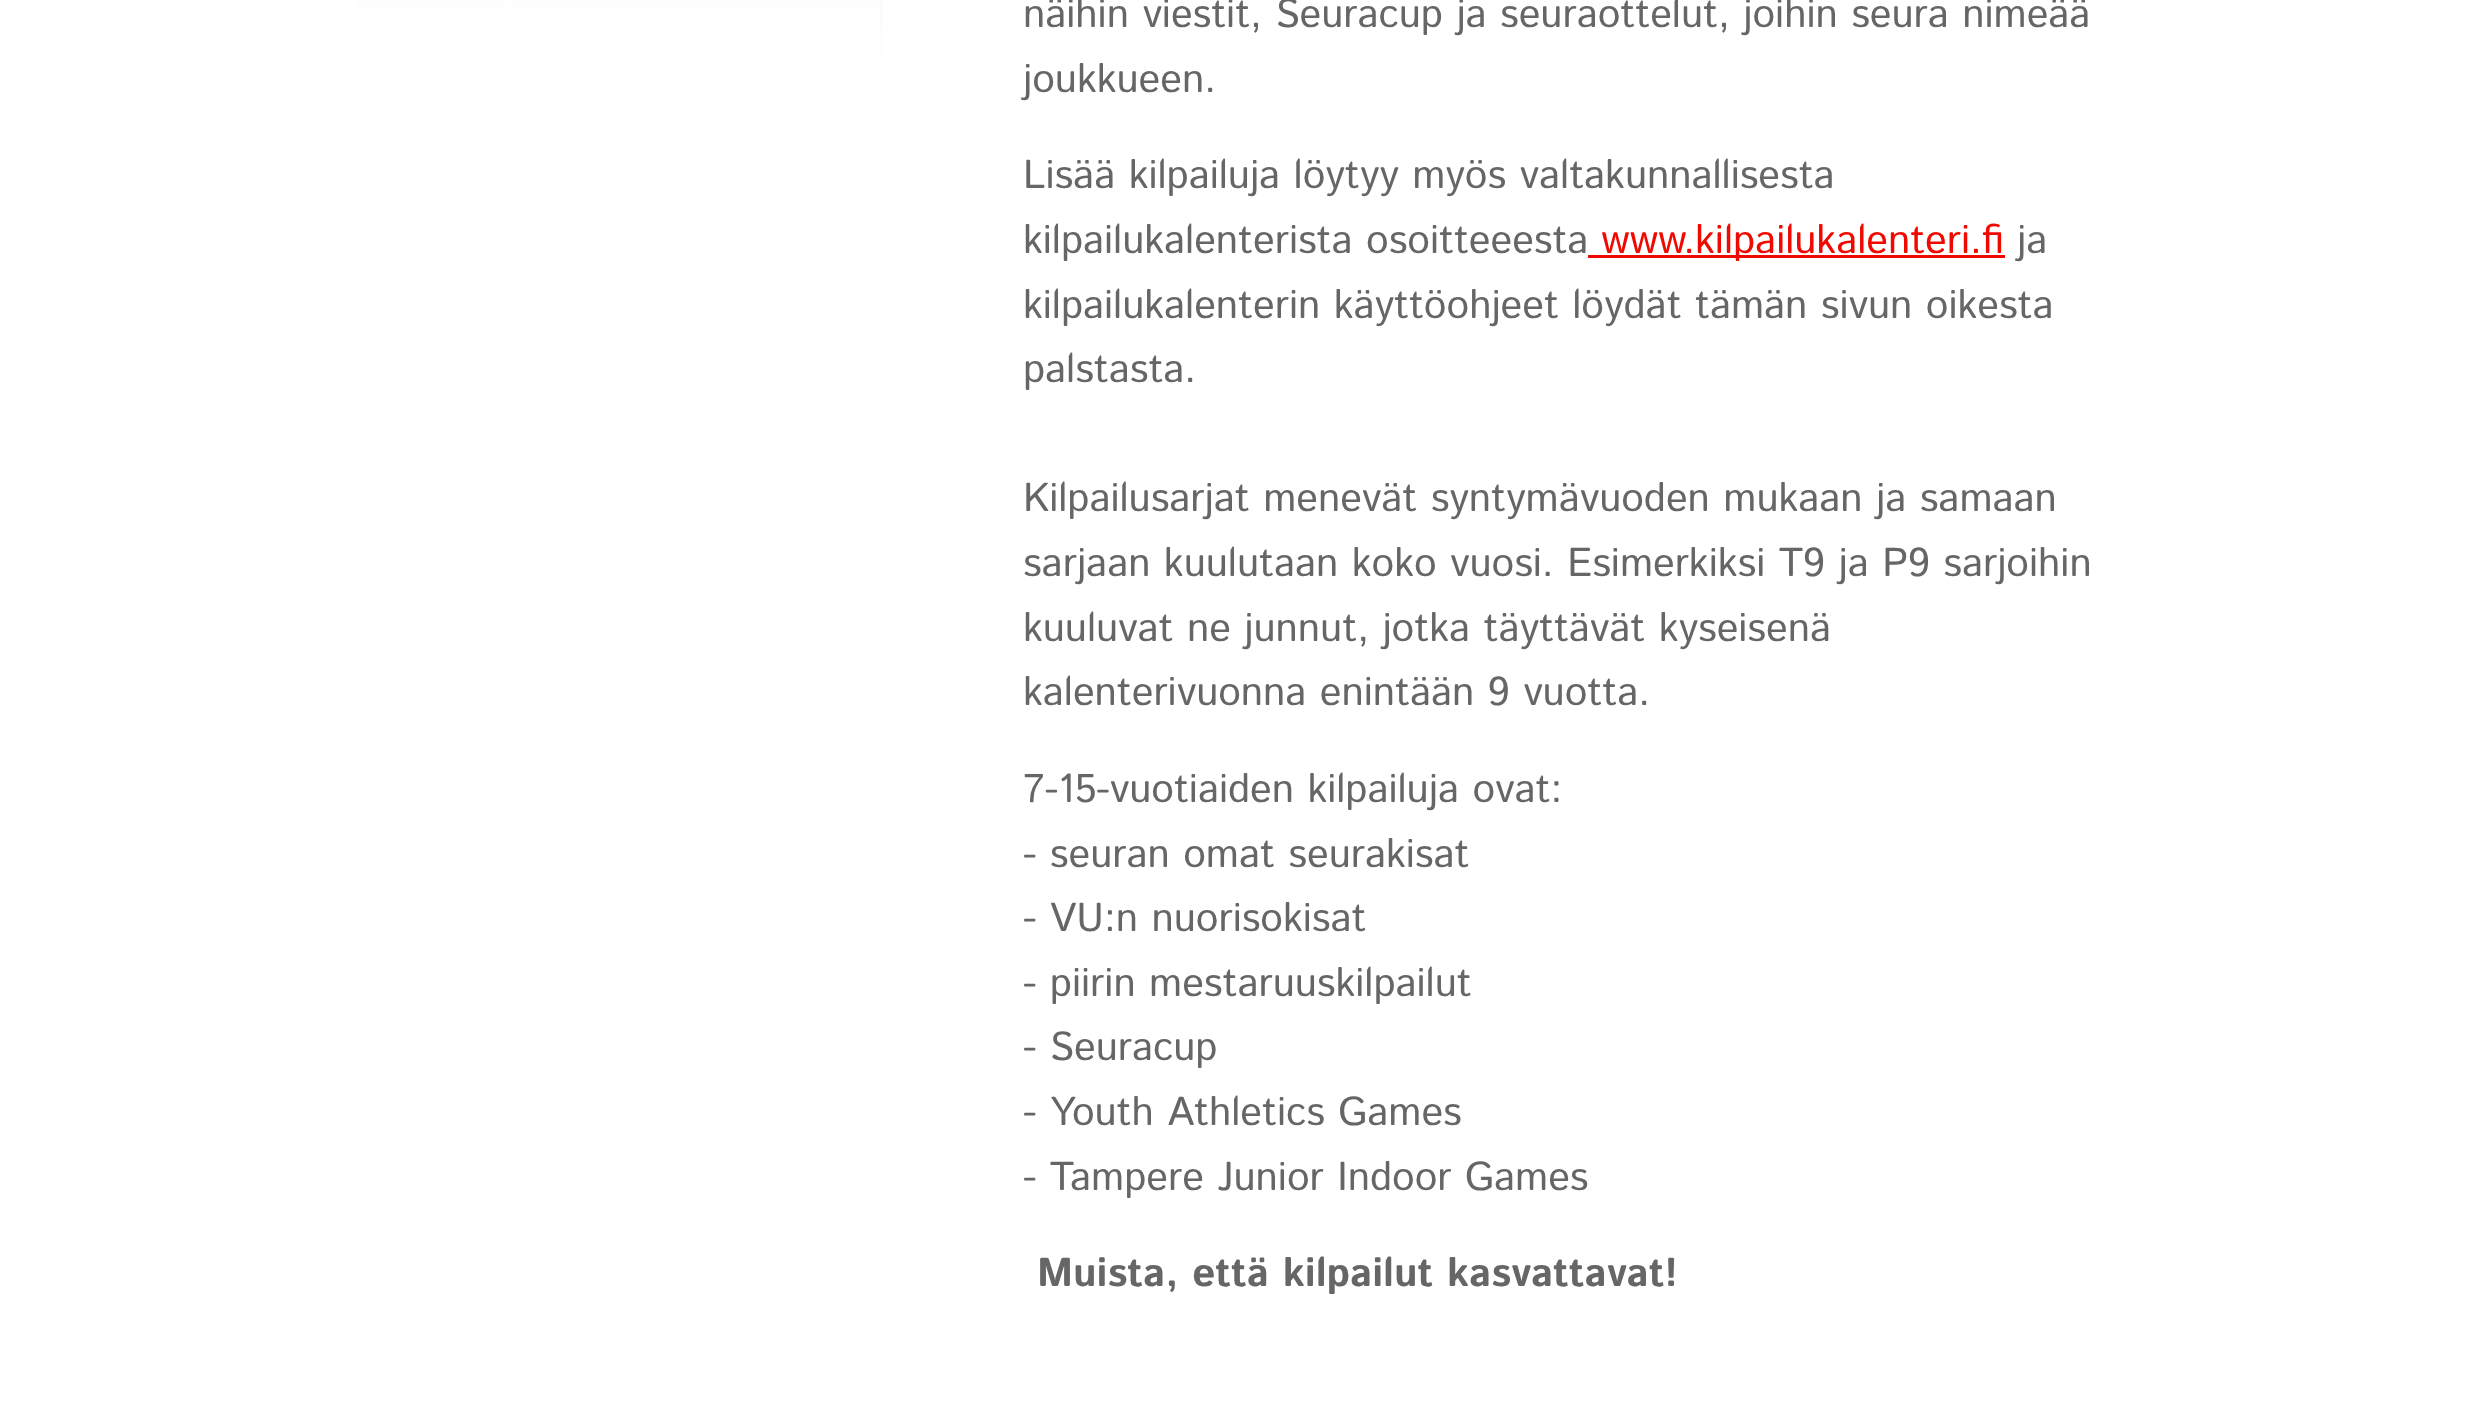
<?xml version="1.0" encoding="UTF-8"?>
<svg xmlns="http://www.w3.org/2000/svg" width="2466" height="1427">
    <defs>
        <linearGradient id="g1" gradientUnits="userSpaceOnUse" x1="619" y1="-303" x2="619" y2="73"><stop offset="0" stop-color="#FFFFFF" stop-opacity="0"/><stop offset="1" stop-color="#FFFFFF"/></linearGradient>
    </defs>
    <rect width="100%" height="100%" fill="#FFFFFF"/>
    <rect x="355" y="0" width="525" height="71" fill="#F9F9F9"/>
    <path d="M 355 72 V 73 H 883 V -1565 H 880 V 72 Z" fill="#E6E6E6"/>
    <rect x="355" y="0" width="528" height="73" fill="url(#g1)"/>
    <text font-family="Istok Web" font-size="40.4" fill="#666666">
        <tspan x="1023" y="27">näihin viestit, Seuracup ja seuraottelut, joihin seura nimeää</tspan>
        <tspan x="1023" y="92">joukkueen.</tspan>
    </text>
    <text font-family="Istok Web" font-size="40.4" fill="#666666">
        <tspan x="1023" y="188">Lisää kilpailuja löytyy myös valtakunnallisesta</tspan>
        <tspan x="1023" y="253">kilpailukalenterista osoitteeesta</tspan>
    </text>
    <rect x="1588" y="255" width="417" height="3" fill="#EF0900"/>
    <text x="1601" y="253" font-family="Istok Web" font-size="40.4" fill="#EF0900">www.kilpailukalenteri.fi</text>
    <text x="2017" y="253" font-family="Istok Web" font-size="40.4" fill="#666666">ja</text>
    <text font-family="Istok Web" font-size="40.4" fill="#666666">
        <tspan x="1023" y="318">kilpailukalenterin käyttöohjeet löydät tämän sivun oikesta</tspan>
        <tspan x="1023" y="382">palstasta.</tspan>
    </text>
    <text font-family="Istok Web" font-size="40.4" fill="#666666">
        <tspan x="1023" y="511">Kilpailusarjat menevät syntymävuoden mukaan ja samaan</tspan>
        <tspan x="1023" y="576">sarjaan kuulutaan koko vuosi. Esimerkiksi T9 ja P9 sarjoihin</tspan>
        <tspan x="1023" y="641">kuuluvat ne junnut, jotka täyttävät kyseisenä</tspan>
        <tspan x="1023" y="705">kalenterivuonna enintään 9 vuotta.</tspan>
    </text>
    <text font-family="Istok Web" font-size="40.4" fill="#666666">
        <tspan x="1023" y="802">7-15-vuotiaiden kilpailuja ovat:</tspan>
        <tspan x="1023" y="867">- seuran omat seurakisat</tspan>
        <tspan x="1023" y="931">- VU:n nuorisokisat</tspan>
        <tspan x="1023" y="996">- piirin mestaruuskilpailut</tspan>
        <tspan x="1023" y="1060">- Seuracup</tspan>
        <tspan x="1023" y="1125">- Youth Athletics Games</tspan>
        <tspan x="1023" y="1190">- Tampere Junior Indoor Games</tspan>
    </text>
    <text x="1037" y="1286" font-family="Istok Web" font-size="40.4" font-weight="700" fill="#666666">Muista, että kilpailut kasvattavat!</text>
</svg>
